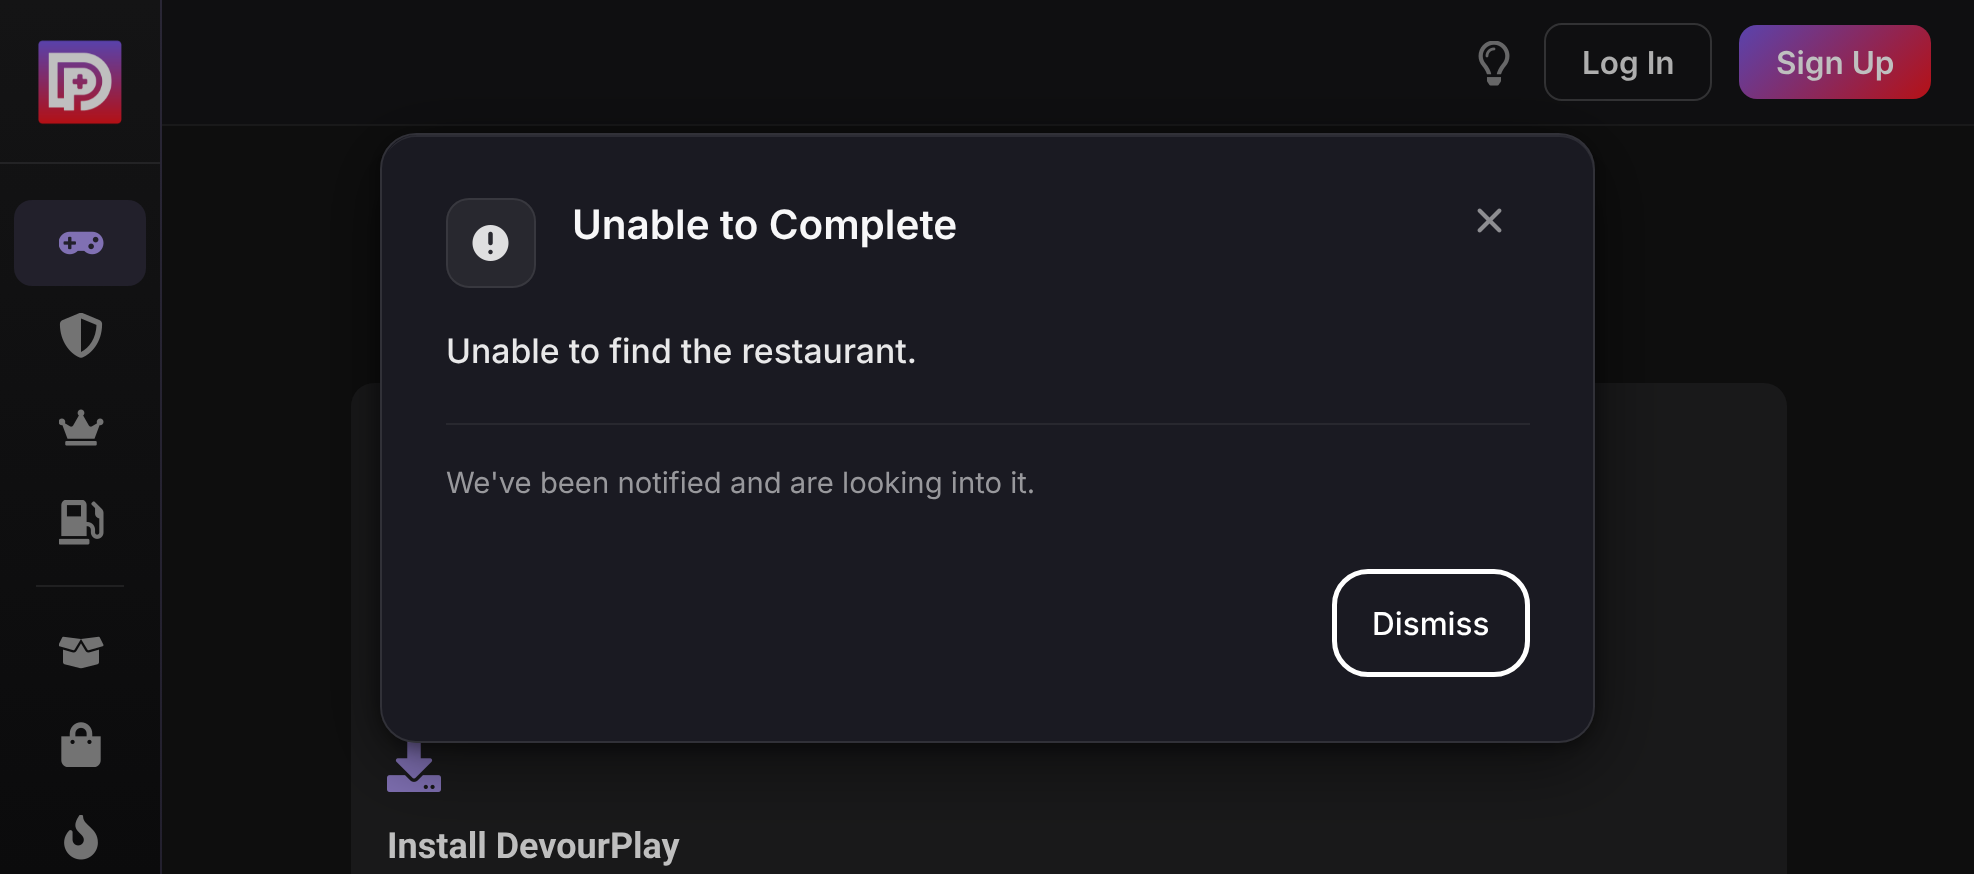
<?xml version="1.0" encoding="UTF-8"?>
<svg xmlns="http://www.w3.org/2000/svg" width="1974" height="874">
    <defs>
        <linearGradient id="g1" gradientUnits="userSpaceOnUse" x1="80" y1="0" x2="80" y2="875"><stop offset="0" stop-color="#141415"/><stop offset="1" stop-color="#0B0B0C"/></linearGradient>
        <linearGradient id="g2" gradientUnits="userSpaceOnUse" x1="80" y1="0" x2="80" y2="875"><stop offset="0" stop-color="#292635"/><stop offset="1" stop-color="#23202E"/></linearGradient>
        <linearGradient id="g3" gradientUnits="userSpaceOnUse" x1="1769" y1="-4.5" x2="1901" y2="128"><stop offset="0" stop-color="#5A43AD"/><stop offset="1" stop-color="#B51116"/></linearGradient>
        <filter id="blur1" x="-50%" y="-200%" width="200%" height="500%"><feGaussianBlur stdDeviation="9"/></filter>
        <filter id="blur2" x="-50%" y="-200%" width="200%" height="500%"><feGaussianBlur stdDeviation="36"/></filter>
    </defs>
    <rect width="100%" height="100%" fill="#0E0E0E"/>
    <rect x="0" y="0" width="160" height="874" fill="url(#g1)"/>
    <rect x="160" y="0" width="2" height="874" fill="url(#g2)"/>
    <rect x="0" y="162" width="160" height="2" fill="#232325"/>
    <image x="38" y="40" width="84" height="85" href="img_01.png"/>
    <rect x="14" y="200" width="132" height="86" rx="18" fill="#22202B"/>
    <image x="59" y="231" width="45" height="24" href="img_02.png"/>
    <image x="59" y="313" width="44" height="45" href="img_03.png"/>
    <image x="59" y="409" width="45" height="37" href="img_04.png"/>
    <image x="59" y="500" width="45" height="45" href="img_05.png"/>
    <rect x="36" y="585" width="88" height="2" fill="#202021"/>
    <image x="59" y="636" width="45" height="33" href="img_06.png"/>
    <image x="61" y="722" width="40" height="45" href="img_07.png"/>
    <image x="64" y="815" width="34" height="45" href="img_08.png"/>
    <rect x="162" y="0" width="1812" height="124" fill="#0F0F11"/>
    <rect x="162" y="124" width="1812" height="2" fill="#19191A"/>
    <image x="1478" y="41" width="32" height="45" href="img_09.png"/>
    <rect x="1545" y="24" width="166" height="76" rx="17" fill="none" stroke="#323234" stroke-width="2"/>
    <text x="1582" y="74" font-family="Inter" font-size="31.5" font-weight="600" fill="#AEAEAE">Log In</text>
    <rect x="1739" y="25" width="192" height="74" rx="18" fill="url(#g3)"/>
    <text x="1776" y="74" font-family="Inter" font-size="31.5" font-weight="600" fill="#BFBFBF">Sign Up</text>
    <rect x="351" y="383" width="1436" height="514" rx="23" fill="#19191A"/>
    <image x="387" y="741" width="54" height="51" href="img_10.png"/>
    <text x="387" y="858" font-family="Roboto" font-size="36" font-weight="700" fill="#BFBFBF">Install DevourPlay</text>
    <rect x="380" y="137" width="1215" height="610" rx="36" fill="#000000" fill-opacity="0.4" filter="url(#blur1)"/>
    <rect x="380" y="151" width="1215" height="610" rx="36" fill="#000000" fill-opacity="0.5" filter="url(#blur2)"/>
    <rect x="380" y="133" width="1215" height="610" rx="36" fill="#1A1A22"/>
    <path d="M 416 137 H 1559 C 1578 137 1593 152 1593 171 V 169 C 1593 150 1578 135 1559 135 H 417 C 403 135 391 144 386 156 C 391 145 403 137 416 137 Z" fill="#2C2C34"/>
    <rect x="381" y="134" width="1213" height="608" rx="35" fill="none" stroke="#FFFFFF" stroke-opacity="0.1" stroke-width="2"/>
    <rect x="446" y="198" width="90" height="90" rx="23" fill="#28282F"/>
    <rect x="447" y="199" width="88" height="88" rx="22" fill="none" stroke="#FFFFFF" stroke-opacity="0.08" stroke-width="2"/>
    <image x="472" y="225" width="37" height="36" href="img_11.png"/>
    <text x="572" y="239" font-family="Inter" font-size="40.5" font-weight="600" fill="#F7F7F8">Unable to Complete</text>
    <image x="1477" y="208" width="25" height="25" href="img_12.png"/>
    <text x="446" y="363" font-family="Inter" font-size="33.75" font-weight="500" fill="#E8E8E9">Unable to find the restaurant.</text>
    <rect x="446" y="423" width="1084" height="2" fill="#28282F"/>
    <text x="446" y="493" font-family="Inter" font-size="29.25" fill="#98989C">We've been notified and are looking into it.</text>
    <rect x="1334.5" y="571.5" width="193" height="103" rx="33.5" fill="none" stroke="#FFFFFF" stroke-width="5"/>
    <text x="1372" y="635" font-family="Inter" font-size="31.5" font-weight="500" fill="#FFFFFF">Dismiss</text>
</svg>
